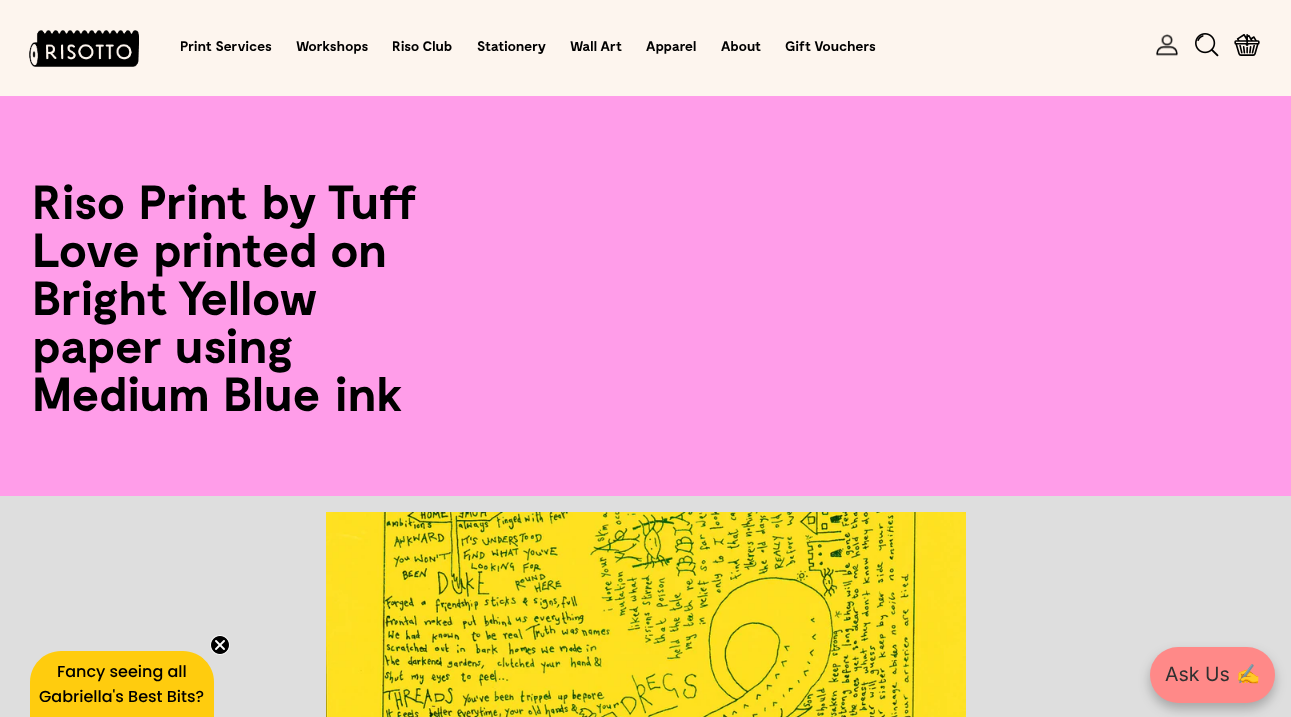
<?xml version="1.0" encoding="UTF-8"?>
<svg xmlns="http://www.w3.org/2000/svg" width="1291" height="717">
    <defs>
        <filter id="blur1" x="-50%" y="-200%" width="200%" height="500%"><feGaussianBlur stdDeviation="6"/></filter>
    </defs>
    <rect width="100%" height="100%" fill="#DEDEDE"/>
    <rect x="0" y="0" width="1291" height="96" fill="#FDF5EE"/>
    <image x="29" y="30" width="110" height="37" href="img_01.png"/>
    <text x="180" y="51" font-family="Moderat" font-size="14" font-weight="700" fill="#000000">Print Services</text>
    <text x="296" y="51" font-family="Moderat" font-size="14" font-weight="700" fill="#000000">Workshops</text>
    <text x="392" y="51" font-family="Moderat" font-size="14" font-weight="700" fill="#000000">Riso Club</text>
    <text x="477" y="51" font-family="Moderat" font-size="14" font-weight="700" fill="#000000">Stationery</text>
    <text x="570" y="51" font-family="Moderat" font-size="14" font-weight="700" fill="#000000">Wall Art</text>
    <text x="646" y="51" font-family="Moderat" font-size="14" font-weight="700" fill="#000000">Apparel</text>
    <text x="721" y="51" font-family="Moderat" font-size="14" font-weight="700" fill="#000000">About</text>
    <text x="785" y="51" font-family="Moderat" font-size="14" font-weight="700" fill="#000000">Gift Vouchers</text>
    <image x="1156" y="34" width="22" height="22" href="img_02.png"/>
    <image x="1195" y="33" width="24" height="24" href="img_03.png"/>
    <image x="1234" y="34" width="26" height="22" href="img_04.png"/>
    <rect x="0" y="96" width="1291" height="400" fill="#FF9DE9"/>
    <text font-family="Moderat" font-size="48" font-weight="700" fill="#000000">
        <tspan x="32" y="219">Riso Print by Tuff</tspan>
        <tspan x="32" y="267">Love printed on</tspan>
        <tspan x="32" y="315" word-spacing="-2">Bright Yellow</tspan>
        <tspan x="32" y="363">paper using</tspan>
        <tspan x="32" y="411">Medium Blue ink</tspan>
    </text>
    <image x="326" y="512" width="640" height="205" href="img_05.png"/>
    <path d="M 61 651 H 183 C 200 651 214 665 214 682 V 717 H 30 V 682 C 30 665 44 651 61 651 Z" fill="#FFCC0E"/>
    <image x="210" y="635" width="20" height="20" href="img_06.png"/>
    <text x="57" y="677" font-family="Poppins" font-size="16" font-weight="500" fill="#000000">Fancy seeing all</text>
    <text x="39" y="702" font-family="Poppins" font-size="16" font-weight="500" fill="#000000">Gabriella's Best Bits?</text>
    <rect x="1150" y="653" width="125" height="56" rx="28" fill="#000000" fill-opacity="0.25" filter="url(#blur1)"/>
    <rect x="1150" y="647" width="125" height="56" rx="28" fill="#FF8988"/>
    <text x="1165" y="681" font-family="Inter" font-size="19.5" fill="#303030">Ask Us</text>
    <text x="1236" y="681" font-family="Noto Color Emoji" font-size="19.5" fill="#303030">✍️</text>
</svg>
